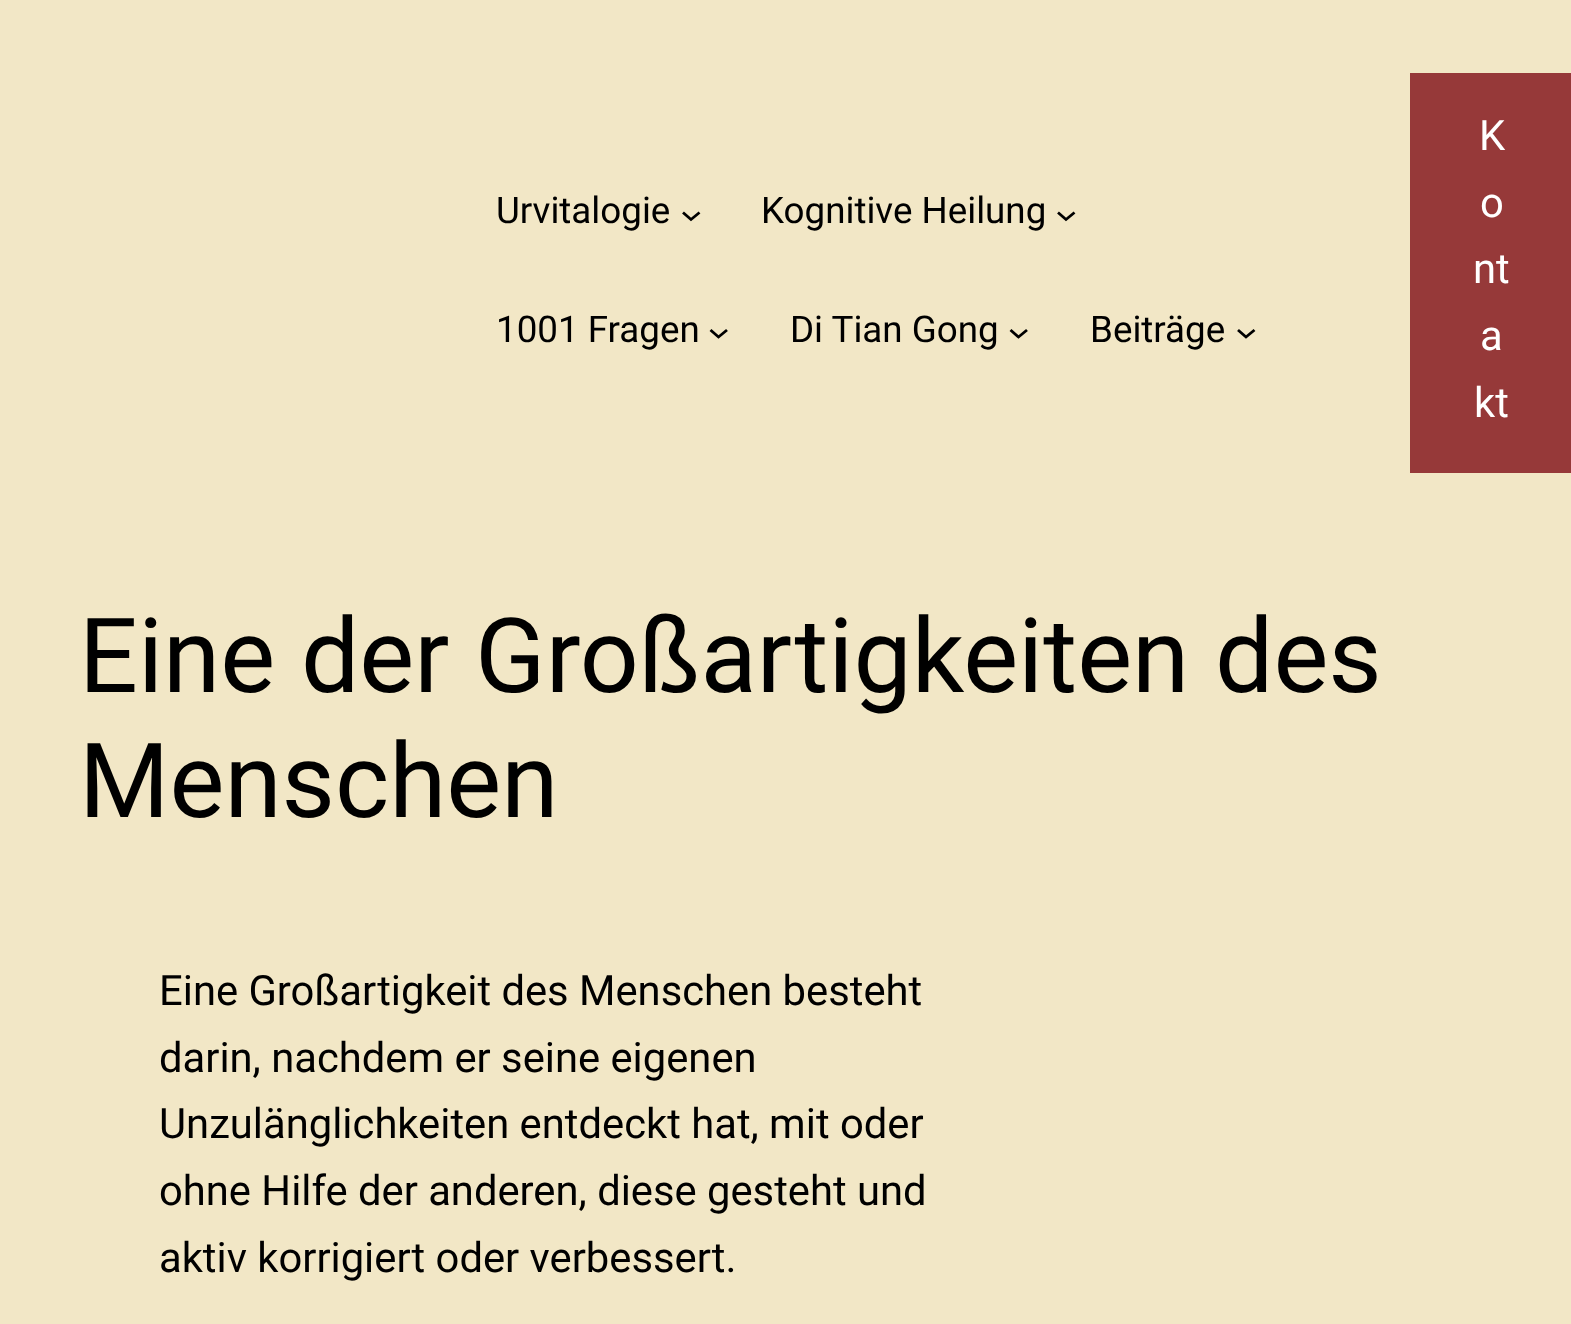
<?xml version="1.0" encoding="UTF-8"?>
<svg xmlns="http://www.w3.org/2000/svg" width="1571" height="1324">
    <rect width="100%" height="100%" fill="#F2E7C6"/>
    <text x="496" y="223" font-family="Roboto" font-size="36.75" fill="#000000">Urvitalogie</text>
    <path d="M 683 212.5 L 691 219.5 L 699.5 212.5" fill="none" stroke="#000000" stroke-width="2.8"/>
    <text x="761" y="223" font-family="Roboto" font-size="36.75" fill="#000000">Kognitive Heilung</text>
    <path d="M 1058 212.5 L 1066 219.5 L 1074.5 212.5" fill="none" stroke="#000000" stroke-width="2.8"/>
    <text x="496" y="342" font-family="Roboto" font-size="36.75" fill="#000000">1001 Fragen</text>
    <path d="M 710.5 330 L 718.5 337 L 727 330" fill="none" stroke="#000000" stroke-width="2.8"/>
    <text x="790" y="342" font-family="Roboto" font-size="36.75" fill="#000000">Di Tian Gong</text>
    <path d="M 1010.5 330 L 1018.5 337 L 1027 330" fill="none" stroke="#000000" stroke-width="2.8"/>
    <text x="1090" y="342" font-family="Roboto" font-size="36.75" fill="#000000">Beiträge</text>
    <path d="M 1238 330 L 1246 337 L 1254.5 330" fill="none" stroke="#000000" stroke-width="2.8"/>
    <rect x="1410" y="73" width="161" height="400" fill="#963939"/>
    <text x="1479" y="150" font-family="Roboto" font-size="41.75" fill="#FFFFFF">K</text>
    <text x="1480" y="217" font-family="Roboto" font-size="41.75" fill="#FFFFFF">o</text>
    <text x="1473" y="283" font-family="Roboto" font-size="41.75" fill="#FFFFFF">nt</text>
    <text x="1480" y="350" font-family="Roboto" font-size="41.75" fill="#FFFFFF">a</text>
    <text x="1474" y="417" font-family="Roboto" font-size="41.75" fill="#FFFFFF">kt</text>
    <text font-family="Roboto" font-size="103.6" fill="#000000">
        <tspan x="79" y="692">Eine der Großartigkeiten des</tspan>
        <tspan x="79" y="817">Menschen</tspan>
    </text>
    <text font-family="Roboto" font-size="41.75" fill="#000000">
        <tspan x="159" y="1005">Eine Großartigkeit des Menschen besteht</tspan>
        <tspan x="159" y="1072">darin, nachdem er seine eigenen</tspan>
        <tspan x="159" y="1138">Unzulänglichkeiten entdeckt hat, mit oder</tspan>
        <tspan x="159" y="1205">ohne Hilfe der anderen, diese gesteht und</tspan>
        <tspan x="159" y="1272">aktiv korrigiert oder verbessert.</tspan>
    </text>
</svg>
